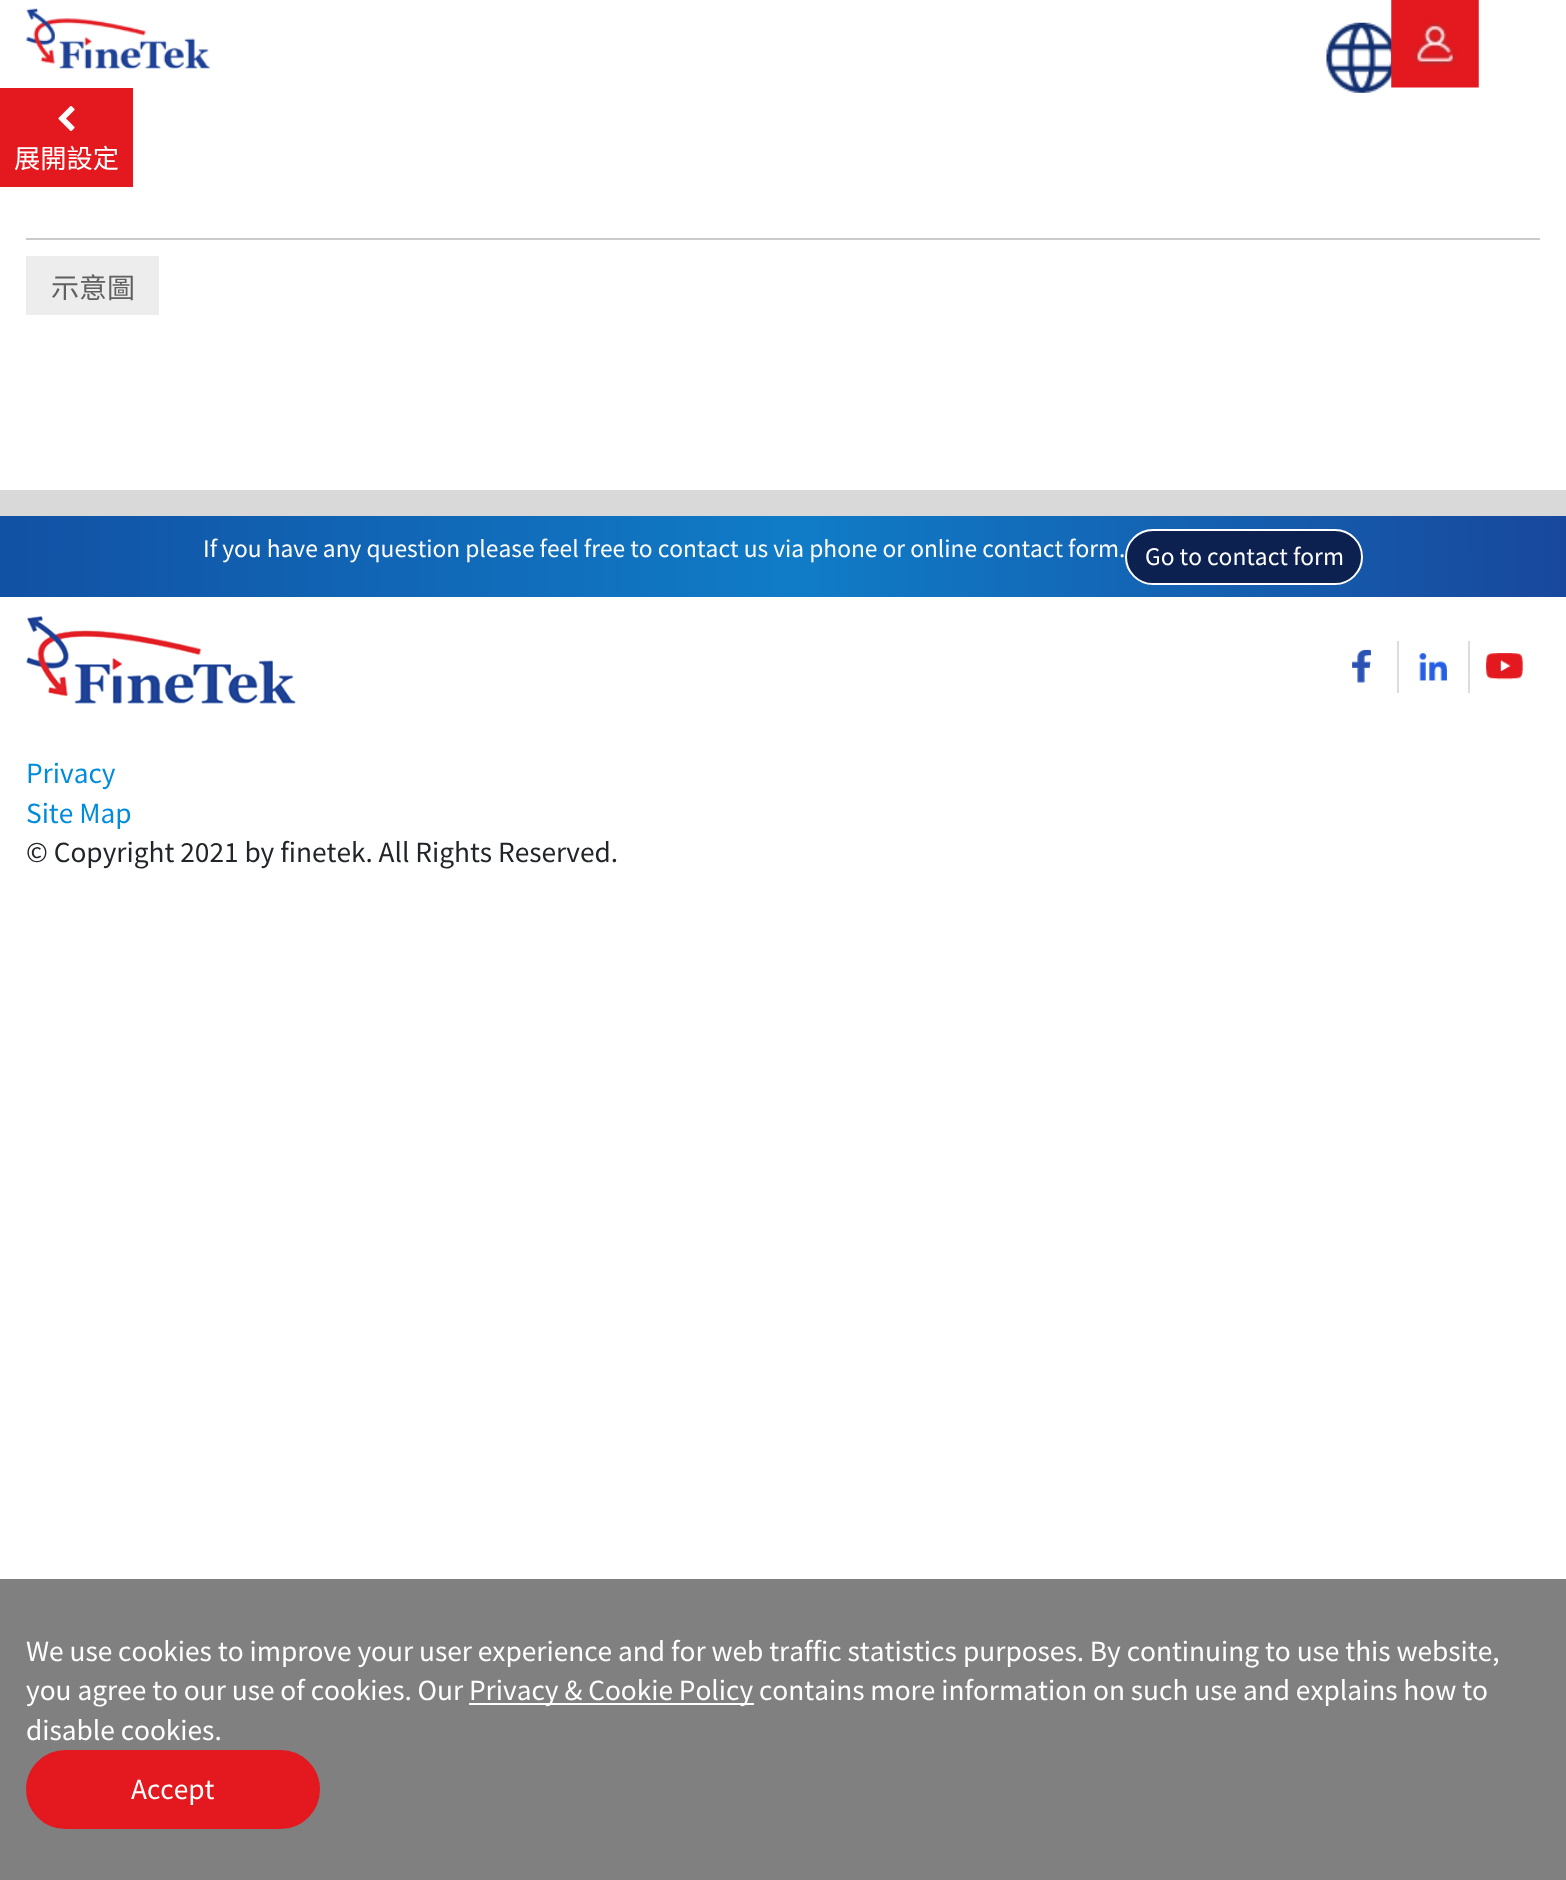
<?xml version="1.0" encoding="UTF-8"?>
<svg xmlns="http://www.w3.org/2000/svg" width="1566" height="1880">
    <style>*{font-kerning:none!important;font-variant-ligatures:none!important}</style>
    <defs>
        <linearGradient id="g1" gradientUnits="userSpaceOnUse" x1="1566" y1="556" x2="0" y2="557"><stop offset="0" stop-color="#18489D"/><stop offset="0.49" stop-color="#107CC7"/><stop offset="1" stop-color="#1251A4"/></linearGradient>
    </defs>
    <rect width="100%" height="100%" fill="#FFFFFF"/>
    <image x="26" y="8" width="184" height="61" href="img_01.png"/>
    <image x="1326" y="22" width="66" height="71" href="img_02.png"/>
    <image x="1391" y="0" width="88" height="88" href="img_03.png"/>
    <rect x="0" y="490" width="1566" height="26" fill="#D9D9D9"/>
    <rect x="0" y="88" width="133" height="99" fill="#E3191F"/>
    <image x="58" y="106" width="17" height="25" href="img_04.png"/>
    <text x="14" y="168" font-family="Noto Sans CJK TC" font-size="26.25" fill="#FFFFFF">展開設定</text>
    <rect x="26" y="238" width="1514" height="2" fill="#CBCBCB"/>
    <rect x="26" y="256" width="133" height="59" fill="#EDEDED"/>
    <text x="51" y="298" font-family="Noto Sans CJK TC" font-size="28" fill="#616161">示意圖</text>
    <rect x="0" y="516" width="1566" height="81" fill="url(#g1)"/>
    <text x="203" y="557" font-family="Noto Sans CJK TC" font-size="22.75" fill="#FFFFFF">If you have any question please feel free to contact us via phone or online contact</text>
    <text x="1068" y="557" font-family="Noto Sans CJK TC" font-size="22.75" fill="#FFFFFF">form.</text>
    <rect x="1126" y="530" width="236" height="54" rx="27" fill="#0C2150" stroke="#FFFFFF" stroke-width="2"/>
    <text x="1145" y="565" font-family="Noto Sans CJK TC" font-size="22.75" fill="#FFFFFF">Go to contact form</text>
    <image x="26" y="616" width="270" height="88" href="img_05.png"/>
    <rect x="1397" y="641" width="2" height="52" fill="#DDDDDD"/>
    <image x="1352" y="649" width="19" height="34" href="img_06.png"/>
    <rect x="1468" y="641" width="2" height="52" fill="#DDDDDD"/>
    <image x="1419" y="653" width="28" height="28" href="img_07.png"/>
    <image x="1486" y="653" width="37" height="27" href="img_08.png"/>
    <text font-family="Noto Sans CJK TC" font-size="26.25" fill="#008CDB">
        <tspan x="26" y="783">Privacy</tspan>
        <tspan x="26" y="823">Site Map</tspan>
    </text>
    <text x="26" y="862" font-family="Noto Sans CJK TC" font-size="26.25" fill="#212529">© Copyright 2021 by finetek. All Rights Reserved.</text>
    <rect x="0" y="1579" width="1566" height="301" fill="#808080"/>
    <text x="26" y="1661" font-family="Noto Sans CJK TC" font-size="26.25" fill="#FFFFFF">We use cookies to improve your user experience and for web traffic statistics</text>
    <text x="963" y="1661" font-family="Noto Sans CJK TC" font-size="26.25" fill="#FFFFFF">purposes. By continuing to use this website,</text>
    <text x="26" y="1700" font-family="Noto Sans CJK TC" font-size="26.25" fill="#FFFFFF">you agree to our use of cookies. Our</text>
    <rect x="469" y="1703" width="285" height="2" fill="#FFFFFF"/>
    <text x="469" y="1700" font-family="Noto Sans CJK TC" font-size="26.25" fill="#FFFFFF">Privacy &amp; Cookie Policy contains more information on such use and explains how to</text>
    <text x="26" y="1740" font-family="Noto Sans CJK TC" font-size="26.25" fill="#FFFFFF">disable cookies.</text>
    <rect x="27" y="1751" width="292" height="77" rx="38.5" fill="#E3191F" stroke="#E3191F" stroke-width="2"/>
    <text x="131" y="1799" font-family="Noto Sans CJK TC" font-size="26.25" fill="#FFFFFF">Accept</text>
</svg>
